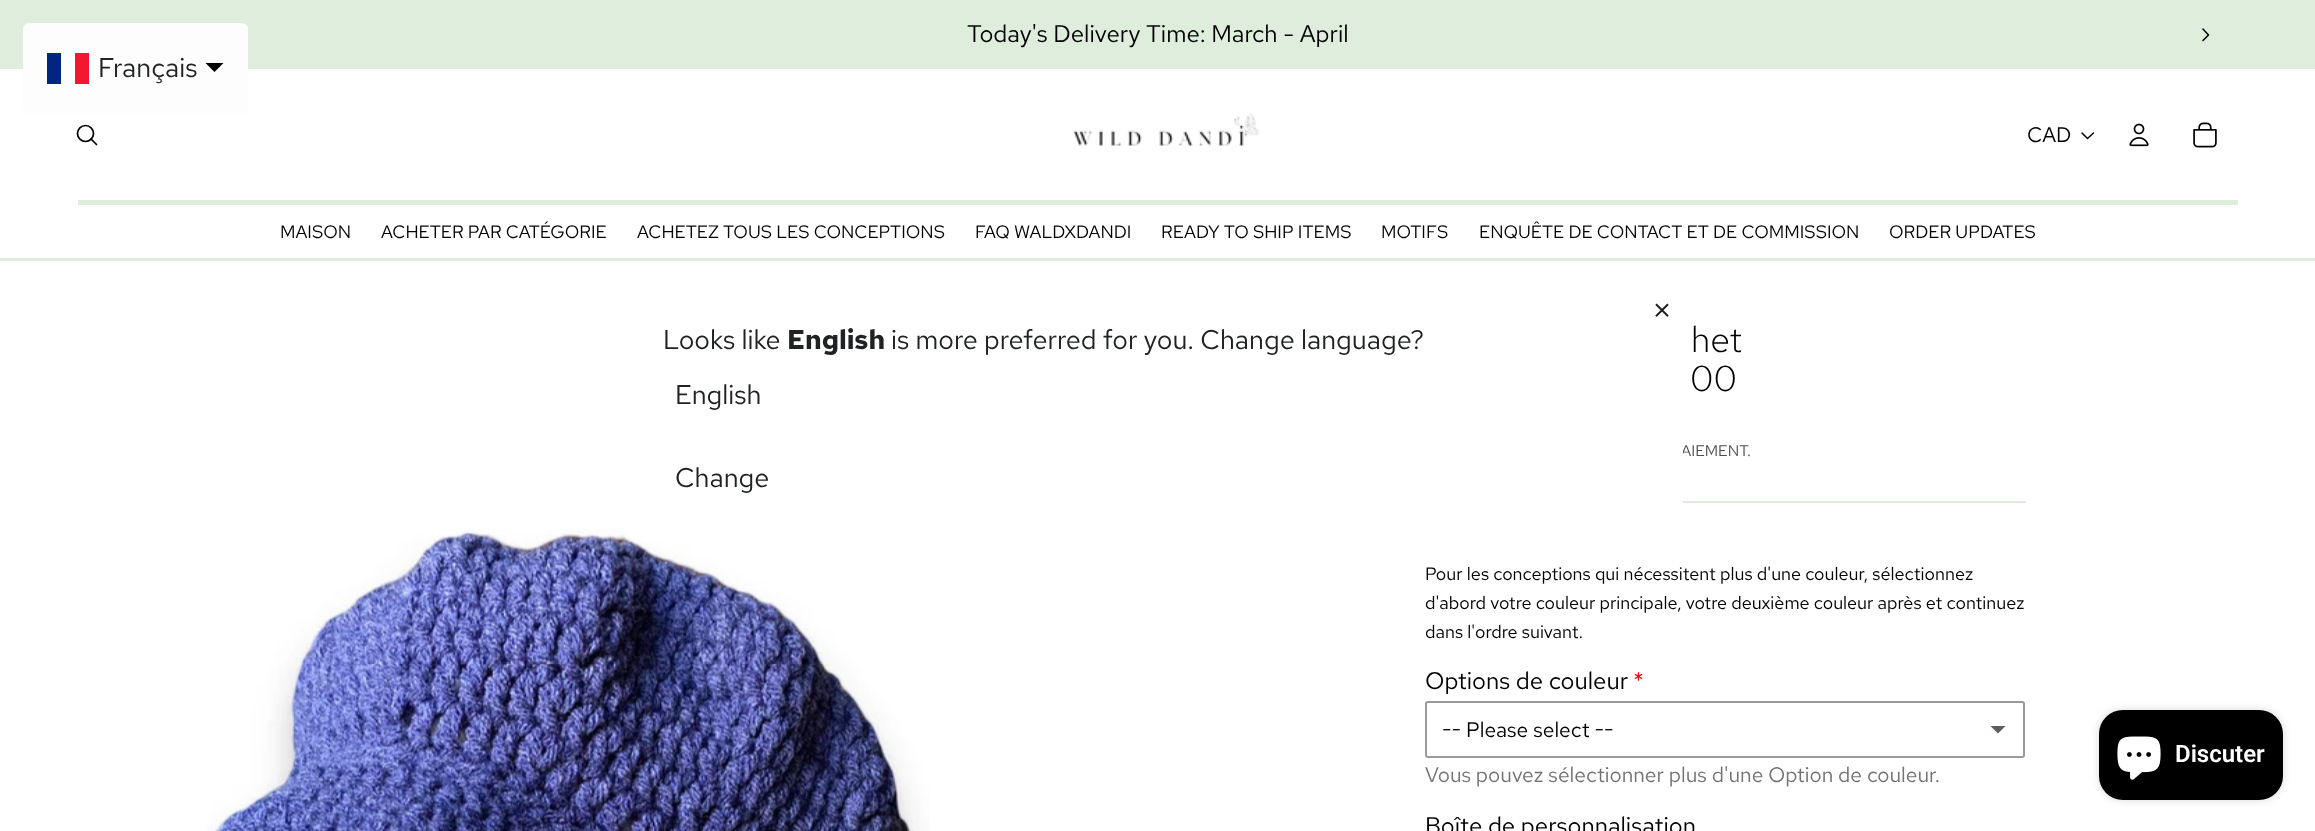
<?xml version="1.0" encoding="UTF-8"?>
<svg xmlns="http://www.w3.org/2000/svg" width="2315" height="831">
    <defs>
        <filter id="blur1" x="-50%" y="-200%" width="200%" height="500%"><feGaussianBlur stdDeviation="4"/></filter>
    </defs>
    <rect width="100%" height="100%" fill="#FFFFFF"/>
    <rect x="0" y="0" width="2315" height="69" fill="#DEEDDC"/>
    <rect x="23" y="23" width="225" height="91" rx="6" fill="#FDFDFD"/>
    <rect x="47" y="53" width="14" height="31" fill="#00267F"/>
    <rect x="75" y="53" width="14" height="31" fill="#F31830"/>
    <text x="98" y="77" font-family="Red Hat Text" font-size="27" fill="#202223">Français</text>
    <path d="M 205.5 63 H 223.5 L 214.5 72 Z" fill="#000000"/>
    <text x="967" y="42" font-family="Red Hat Text" font-size="24" fill="#000000">Today's Delivery Time: March - April</text>
    <path d="M 2203 29 L 2208.5 35 L 2203 40.5" fill="none" stroke="#000000" stroke-width="1.5" stroke-linecap="round" stroke-linejoin="round"/>
    <rect x="78" y="200" width="2160" height="5" fill="#DEEDDC"/>
    <circle cx="85.5" cy="133.5" r="8" fill="none" stroke="#000000" stroke-width="1.7"/>
    <path d="M 91 139 L 96.5 144.5" fill="none" stroke="#000000" stroke-width="1.7" stroke-linecap="round" stroke-linejoin="round"/>
    <image x="1073" y="113" width="187" height="33" href="img_01.png"/>
    <text x="2027" y="142" font-family="Red Hat Text" font-size="21" fill="#000000">CAD</text>
    <path d="M 2093.5 133 L 2087.5 138.5 L 2082 133" fill="none" stroke="#000000" stroke-width="1.5" stroke-linecap="round" stroke-linejoin="round"/>
    <image x="2129" y="123" width="20" height="24" href="img_02.png"/>
    <image x="2193" y="122" width="24" height="26" href="img_03.png"/>
    <rect x="0" y="258" width="2315" height="3" fill="#DEEDDC"/>
    <text x="280" y="238" font-family="Red Hat Text" font-size="18" fill="#000000">MAISON</text>
    <text x="381" y="238" font-family="Red Hat Text" font-size="18" fill="#000000">ACHETER PAR CATÉGORIE</text>
    <text x="637" y="238" font-family="Red Hat Text" font-size="18" fill="#000000">ACHETEZ TOUS LES CONCEPTIONS</text>
    <text x="975" y="238" font-family="Red Hat Text" font-size="18" fill="#000000">FAQ WALDXDANDI</text>
    <text x="1161" y="238" font-family="Red Hat Text" font-size="18" fill="#000000">READY TO SHIP ITEMS</text>
    <text x="1381" y="238" font-family="Red Hat Text" font-size="18" fill="#000000">MOTIFS</text>
    <text x="1479" y="238" font-family="Red Hat Text" font-size="18" fill="#000000">ENQUÊTE DE CONTACT ET DE COMMISSION</text>
    <text x="1889" y="238" font-family="Red Hat Text" font-size="18" fill="#000000">ORDER UPDATES</text>
    <image x="207" y="529" width="723" height="302" href="img_05.png"/>
    <text x="1681" y="456" font-family="Red Hat Text" font-size="15.5" fill="#4D4D4D">AIEMENT.</text>
    <rect x="633" y="290" width="1050" height="252" rx="12" fill="#FFFFFF"/>
    <image x="1655" y="303" width="14" height="14" href="img_04.png"/>
    <text x="663" y="349" font-family="Red Hat Text" font-size="27" fill="#202223">Looks like</text>
    <text x="787" y="349" font-family="Red Hat Text" font-size="27" font-weight="700" fill="#202223">English</text>
    <text x="891" y="349" font-family="Red Hat Text" font-size="27" fill="#202223">is more preferred for you. Change language?</text>
    <text x="675" y="404" font-family="Red Hat Text" font-size="27" fill="#202223">English</text>
    <text x="675" y="487" font-family="Red Hat Text" font-size="27" fill="#202223">Change</text>
    <text x="1691" y="352" font-family="Red Hat Text" font-size="36" font-weight="300" fill="#000000">het</text>
    <text x="1690" y="391" font-family="Red Hat Text" font-size="36" font-weight="300" fill="#000000">00</text>
    <rect x="1683" y="501" width="343" height="2" fill="#DEEDDC"/>
    <text font-family="Red Hat Text" font-size="18" fill="#000000">
        <tspan x="1425" y="580">Pour les conceptions qui nécessitent plus d'une couleur, sélectionnez</tspan>
        <tspan x="1425" y="609">d'abord votre couleur principale, votre deuxième couleur après et continuez</tspan>
        <tspan x="1425" y="638">dans l'ordre suivant.</tspan>
    </text>
    <text x="1425" y="689" font-family="Red Hat Text" font-size="24" fill="#000000">Options de couleur</text>
    <text x="1633" y="689" font-family="Red Hat Text" font-size="24" fill="#FF0000">*</text>
    <rect x="1426" y="702" width="598" height="55" rx="2" fill="none" stroke="#9A9A9A" stroke-width="2"/>
    <text x="1442" y="737" font-family="Red Hat Text" font-size="21" fill="#000000">-- Please select --</text>
    <path d="M 1990.5 726 H 2005.5 L 1998 733.5 Z" fill="#5C5F62"/>
    <text x="1425" y="782" font-family="Red Hat Text" font-size="21" fill="#737373">Vous pouvez sélectionner plus d'une Option de couleur.</text>
    <text x="1425" y="834" font-family="Red Hat Text" font-size="24" fill="#000000">Boîte de personnalisation</text>
    <rect x="2099" y="710" width="184" height="90" rx="24" fill="#000000" fill-opacity="0.15" filter="url(#blur1)"/>
    <rect x="2099" y="710" width="184" height="90" rx="24" fill="#000000"/>
    <image x="2117" y="736" width="44" height="44" href="img_06.png"/>
    <text x="2175" y="762" font-family="Roboto" font-size="24" font-weight="600" fill="#FFFFFF">Discuter</text>
</svg>
